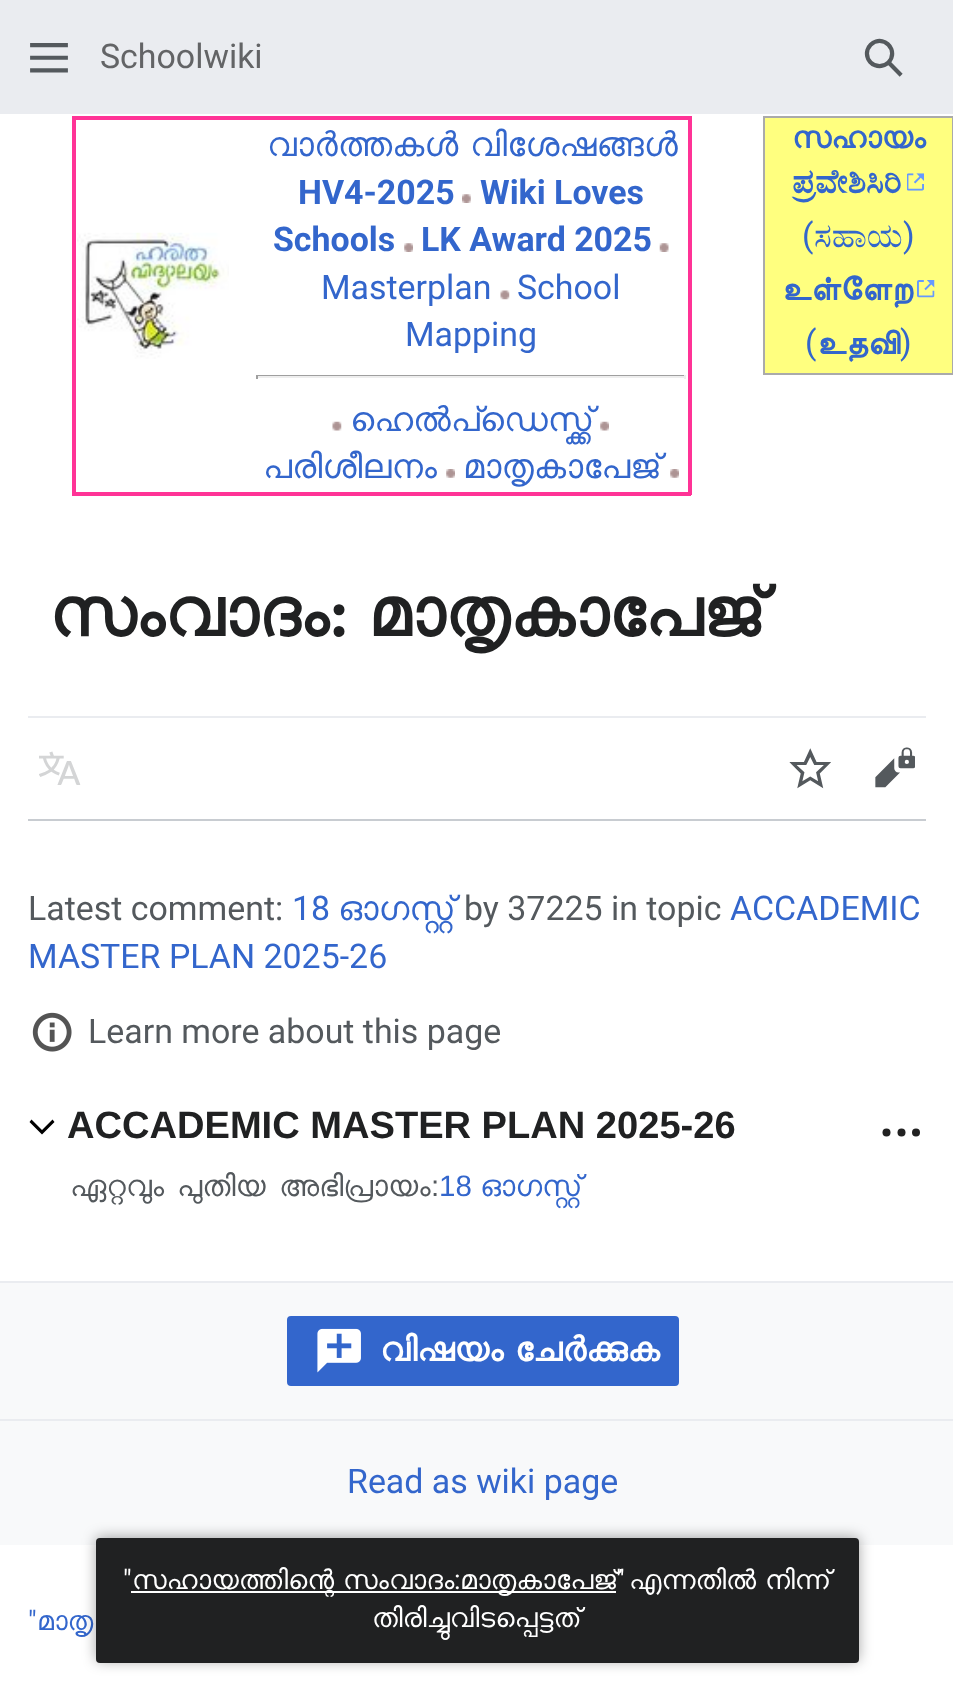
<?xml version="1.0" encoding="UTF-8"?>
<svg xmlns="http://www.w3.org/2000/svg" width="953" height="1697">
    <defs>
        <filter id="blur1" x="-50%" y="-200%" width="200%" height="500%"><feGaussianBlur stdDeviation="7"/></filter>
    </defs>
    <rect width="100%" height="100%" fill="#EAECF0"/>
    <image x="30" y="43" width="38" height="30" href="img_01.png"/>
    <text x="100" y="68" font-family="Roboto" font-size="33.9" fill="#636466">Schoolwiki</text>
    <image x="864" y="38" width="39" height="39" href="img_02.png"/>
    <rect x="0" y="114" width="953" height="1583" fill="#FFFFFF"/>
    <rect x="72" y="116" width="619" height="4" fill="#FF3396"/>
    <rect x="688" y="116" width="4" height="379" fill="#FF3396"/>
    <rect x="72" y="492" width="619" height="4" fill="#FF3396"/>
    <rect x="72" y="116" width="4" height="379" fill="#FF3396"/>
    <image x="77" y="232" width="152" height="127" href="img_03.png"/>
    <text x="267" y="156" word-spacing="-2" font-family="FreeSans" font-size="33.9" fill="#3366CC">വാർത്തകൾ വിശേഷങ്ങൾ</text>
    <text x="298" y="204" font-family="Roboto" font-size="33.9" font-weight="700" fill="#3366CC">HV4-2025</text>
    <image x="462" y="194" width="9" height="9" href="img_04.png"/>
    <text x="480" y="204" font-family="Roboto" font-size="33.9" font-weight="700" fill="#3366CC">Wiki Loves</text>
    <text x="273" y="251" font-family="Roboto" font-size="33.9" font-weight="700" fill="#3366CC">Schools</text>
    <image x="404" y="243" width="9" height="9" href="img_05.png"/>
    <text x="421" y="251" font-family="Roboto" font-size="33.9" font-weight="700" fill="#3366CC">LK Award 2025</text>
    <image x="659" y="243" width="10" height="9" href="img_06.png"/>
    <text x="321" y="299" font-family="Roboto" font-size="33.9" fill="#3366CC">Masterplan</text>
    <image x="500" y="290" width="10" height="10" href="img_07.png"/>
    <text x="517" y="299" font-family="Roboto" font-size="33.9" fill="#3366CC">School</text>
    <text x="405" y="346" font-family="Roboto" font-size="33.9" fill="#3366CC">Mapping</text>
    <rect x="256" y="375" width="430" height="1" fill="#9F9F9F"/>
    <rect x="684" y="375" width="2" height="4" fill="#EEEEEE"/>
    <rect x="256" y="376" width="430" height="2" fill="#EEEEEE"/>
    <rect x="256" y="375" width="2" height="4" fill="#9F9F9F"/>
    <image x="332" y="421" width="10" height="10" href="img_08.png"/>
    <text x="350" y="431" font-family="FreeSans" font-size="33.9" fill="#3366CC">ഹെൽപ്ഡെസ്ക്ക്</text>
    <image x="600" y="421" width="9" height="10" href="img_09.png"/>
    <text x="263" y="478" font-family="FreeSans" font-size="33.9" fill="#3366CC">പരിശീലനം</text>
    <image x="446" y="469" width="9" height="9" href="img_10.png"/>
    <text x="463" y="478" font-family="FreeSans" font-size="33.9" fill="#3366CC">മാതൃകാപേജ്</text>
    <image x="670" y="469" width="9" height="9" href="img_10.png"/>
    <rect x="765" y="118" width="187" height="255" fill="#FFFF7F"/>
    <rect x="763" y="116" width="190" height="2" fill="#AAAAAA"/>
    <rect x="952" y="116" width="1" height="259" fill="#AAAAAA"/>
    <rect x="763" y="373" width="190" height="2" fill="#AAAAAA"/>
    <rect x="763" y="116" width="2" height="259" fill="#AAAAAA"/>
    <text x="792" y="148" font-family="FreeSans" font-size="30.5" font-weight="700" fill="#3366CC">സഹായം</text>
    <text x="792" y="193" font-family="FreeSerif" font-size="33.5" font-weight="700" fill="#3366CC">ಪ್ರವೇಶಿಸಿರಿ</text>
    <image x="907" y="173" width="17" height="18" href="img_11.png"/>
    <text x="802" y="247" font-family="Roboto" font-size="33.5" fill="#3366CC">(</text>
    <text x="814" y="247" font-family="FreeSerif" font-size="33.5" fill="#3366CC">ಸಹಾಯ</text>
    <text x="903" y="247" font-family="Roboto" font-size="33.5" fill="#3366CC">)</text>
    <text x="782" y="300" font-family="FreeSans" font-size="33.5" font-weight="700" fill="#3366CC">உள்ளேற</text>
    <image x="917" y="280" width="18" height="18" href="img_12.png"/>
    <text x="805" y="354" font-family="Roboto" font-size="33.5" fill="#3366CC">(</text>
    <text x="817" y="354" font-family="FreeSans" font-size="33.5" font-weight="700" fill="#3366CC">உதவி</text>
    <text x="900" y="354" font-family="Roboto" font-size="33.5" fill="#3366CC">)</text>
    <text x="49" y="636" font-family="FreeSans" font-size="67.75" font-weight="700" fill="#202122">സംവാദം</text>
    <text x="328" y="636" font-family="Liberation Serif" font-size="67.75" font-weight="700" fill="#202122">:</text>
    <text x="368" y="636" font-family="FreeSans" font-size="67.75" font-weight="700" fill="#202122">മാതൃകാപേജ്</text>
    <rect x="28" y="716" width="898" height="2" fill="#EAECF0"/>
    <rect x="28" y="819" width="898" height="2" fill="#C8CCD1"/>
    <image x="39" y="751" width="42" height="34" href="img_13.png"/>
    <image x="789" y="748" width="42" height="41" href="img_14.png"/>
    <image x="875" y="747" width="40" height="41" href="img_15.png"/>
    <text x="28" y="920" font-family="Roboto" font-size="33.9" fill="#54595D">Latest comment:</text>
    <text x="292" y="920" font-family="Roboto" font-size="33.9" fill="#3366CC">18</text>
    <text x="338" y="920" font-family="FreeSans" font-size="33.9" fill="#3366CC">ഓഗസ്റ്റ്</text>
    <text x="464" y="920" font-family="Roboto" font-size="33.9" fill="#54595D">by 37225 in topic</text>
    <text x="730" y="920" font-family="Roboto" font-size="33.9" fill="#3366CC">ACCADEMIC</text>
    <text x="28" y="968" font-family="Roboto" font-size="33.9" fill="#3366CC">MASTER PLAN 2025-26</text>
    <image x="32" y="1012" width="40" height="40" href="img_16.png"/>
    <text x="88" y="1043" font-family="Roboto" font-size="33.9" fill="#54595D">Learn more about this page</text>
    <path d="M 52.5 1119.5 L 42 1130 L 31.5 1119.5 L 29.5 1122 L 42 1134.5 L 54.5 1122 Z" fill="#000000"/>
    <text x="67" y="1138" font-family="Liberation Sans" font-size="38.1" font-weight="700" fill="#202122">ACCADEMIC MASTER PLAN 2025-26</text>
    <circle cx="901.5" cy="1132.5" r="4" fill="#212121"/>
    <circle cx="886.5" cy="1132.5" r="4" fill="#212121"/>
    <circle cx="916" cy="1132.5" r="4" fill="#212121"/>
    <text x="70" y="1196" font-family="FreeSans" font-size="29.5" fill="#54595D">ഏറ്റവും</text>
    <text x="177" y="1196" font-family="FreeSans" font-size="29.5" fill="#54595D">പുതിയ</text>
    <text x="279" y="1196" font-family="FreeSans" font-size="29.5" fill="#54595D">അഭിപ്രായം</text>
    <text x="431" y="1196" font-family="Liberation Sans" font-size="29.5" fill="#54595D">:</text>
    <text x="439" y="1196" font-family="Liberation Sans" font-size="29.5" fill="#3366CC">18</text>
    <text x="480" y="1196" font-family="FreeSans" font-size="29.5" fill="#3366CC">ഓഗസ്റ്റ്</text>
    <rect x="0" y="1283" width="953" height="136" fill="#F8F9FA"/>
    <rect x="0" y="1281" width="953" height="2" fill="#EAECF0"/>
    <rect x="288" y="1317" width="390" height="68" rx="3" fill="#3366CC" stroke="#3366CC" stroke-width="2"/>
    <image x="317" y="1328" width="44" height="45" href="img_17.png"/>
    <text x="380" y="1361" word-spacing="-2" font-family="FreeSans" font-size="33.9" font-weight="700" fill="#FFFFFF">വിഷയം ചേർക്കുക</text>
    <rect x="0" y="1421" width="953" height="124" fill="#F8F9FA"/>
    <rect x="0" y="1419" width="953" height="2" fill="#EAECF0"/>
    <text x="347" y="1493" font-family="Roboto" font-size="33.9" fill="#3366CC">Read as wiki page</text>
    <text x="28" y="1630" font-family="Roboto" font-size="27" fill="#3366CC">"</text>
    <text x="37" y="1630" font-family="FreeSans" font-size="27" fill="#3366CC">മാതൃ</text>
    <rect x="96" y="1537" width="763" height="124" rx="4" fill="#000000" fill-opacity="0.35" filter="url(#blur1)"/>
    <rect x="96" y="1538" width="763" height="125" rx="4" fill="#202122"/>
    <text x="123" y="1589" font-family="Roboto" font-size="27" fill="#FFFFFF">"</text>
    <rect x="131" y="1591" width="485" height="2" fill="#FFFFFF"/>
    <text x="132" y="1589" word-spacing="-2" font-family="FreeSans" font-size="27" fill="#FFFFFF">സഹായത്തിന്റെ സംവാദം</text>
    <text x="460" y="1589" font-family="FreeSans" font-size="27" fill="#FFFFFF">മാതൃകാപേജ്</text>
    <text x="616" y="1589" font-family="Roboto" font-size="27" fill="#FFFFFF">"</text>
    <text x="629" y="1589" word-spacing="-2" font-family="FreeSans" font-size="27" fill="#FFFFFF">എന്നതിൽ നിന്ന്</text>
    <text x="454" y="1589" font-family="Roboto" font-size="27" fill="#FFFFFF">:</text>
    <text x="372" y="1627" font-family="FreeSans" font-size="27" fill="#FFFFFF">തിരിച്ചുവിടപ്പെട്ടത്</text>
</svg>
